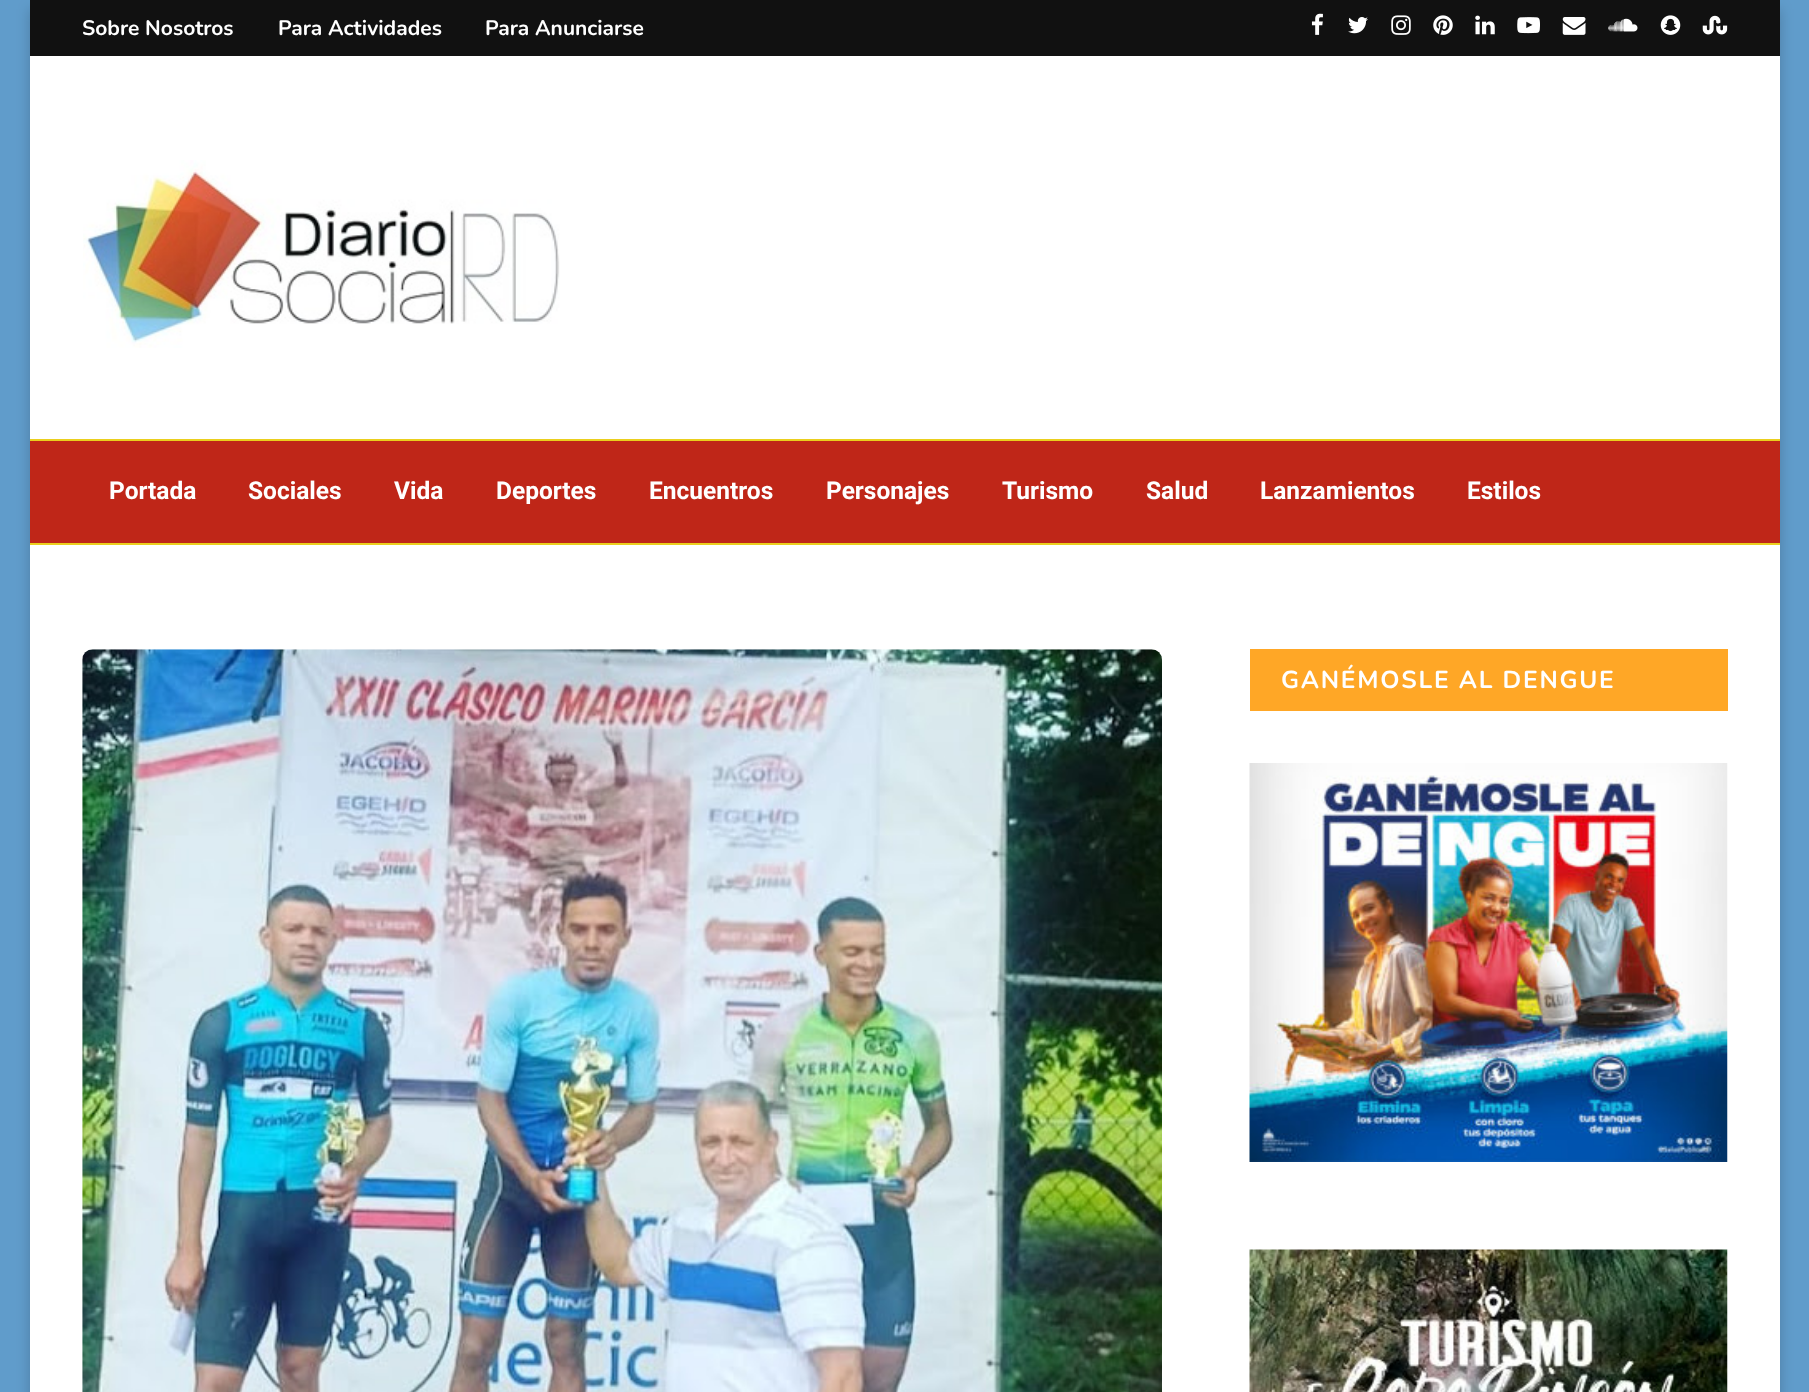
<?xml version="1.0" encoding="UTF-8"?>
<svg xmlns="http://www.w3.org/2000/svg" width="1809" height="1392">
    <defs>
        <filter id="blur1" x="-50%" y="-200%" width="200%" height="500%"><feGaussianBlur stdDeviation="7"/></filter>
    </defs>
    <rect width="100%" height="100%" fill="#609CCB"/>
    <rect x="30" y="9" width="1750" height="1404" fill="#000000" fill-opacity="0.2" filter="url(#blur1)"/>
    <rect x="30" y="56" width="1750" height="1336" fill="#FFFFFF"/>
    <rect x="30" y="0" width="1750" height="56" fill="#111111"/>
    <text x="82" y="35" font-family="Nunito" font-size="21" font-weight="700" fill="#FFFFFF">Sobre Nosotros</text>
    <text x="278" y="35" font-family="Nunito" font-size="21" font-weight="700" fill="#FFFFFF">Para Actividades</text>
    <text x="485" y="35" font-family="Nunito" font-size="21" font-weight="700" fill="#FFFFFF">Para Anunciarse</text>
    <image x="1311" y="13" width="12" height="22" href="img_01.png"/>
    <image x="1348" y="17" width="20" height="17" href="img_02.png"/>
    <image x="1391" y="15" width="20" height="20" href="img_03.png"/>
    <image x="1433" y="15" width="20" height="20" href="img_04.png"/>
    <image x="1475" y="15" width="20" height="20" href="img_05.png"/>
    <image x="1517" y="17" width="23" height="17" href="img_06.png"/>
    <image x="1562" y="17" width="24" height="18" href="img_07.png"/>
    <image x="1608" y="18" width="30" height="14" href="img_08.png"/>
    <image x="1660" y="15" width="21" height="20" href="img_09.png"/>
    <image x="1702" y="15" width="26" height="20" href="img_10.png"/>
    <image x="83" y="160" width="477" height="188" href="img_11.png"/>
    <rect x="30" y="441" width="1750" height="102" fill="#BF2618"/>
    <rect x="30" y="439" width="1750" height="2" fill="#EACF1E"/>
    <rect x="30" y="543" width="1750" height="2" fill="#EACF1E"/>
    <text x="109" y="499" font-family="Roboto" font-size="24.5" font-weight="700" fill="#FFFFFF">Portada</text>
    <text x="248" y="499" font-family="Roboto" font-size="24.5" font-weight="700" fill="#FFFFFF">Sociales</text>
    <text x="394" y="499" font-family="Roboto" font-size="24.5" font-weight="700" fill="#FFFFFF">Vida</text>
    <text x="496" y="499" font-family="Roboto" font-size="24.5" font-weight="700" fill="#FFFFFF">Deportes</text>
    <text x="649" y="499" font-family="Roboto" font-size="24.5" font-weight="700" fill="#FFFFFF">Encuentros</text>
    <text x="826" y="499" font-family="Roboto" font-size="24.5" font-weight="700" fill="#FFFFFF">Personajes</text>
    <text x="1002" y="499" font-family="Roboto" font-size="24.5" font-weight="700" fill="#FFFFFF">Turismo</text>
    <text x="1146" y="499" font-family="Roboto" font-size="24.5" font-weight="700" fill="#FFFFFF">Salud</text>
    <text x="1260" y="499" font-family="Roboto" font-size="24.5" font-weight="700" fill="#FFFFFF">Lanzamientos</text>
    <text x="1467" y="499" font-family="Roboto" font-size="24.5" font-weight="700" fill="#FFFFFF">Estilos</text>
    <image x="82" y="649" width="1080" height="743" href="img_12.png"/>
    <rect x="1260" y="651" width="466" height="58" fill="#FFA726"/>
    <rect x="1260" y="649" width="467" height="2" fill="#FFA726"/>
    <rect x="1726" y="649" width="2" height="62" fill="#FFA726"/>
    <rect x="1260" y="709" width="467" height="2" fill="#FFA726"/>
    <rect x="1250" y="649" width="10" height="62" fill="#FFA726"/>
    <text x="1281" y="688" font-family="Nunito" font-size="24.5" font-weight="700" letter-spacing="1.75" fill="#FFFFFF">GANÉMOSLE AL DENGUE</text>
    <image x="1249" y="763" width="479" height="399" href="img_13.png"/>
    <image x="1249" y="1249" width="479" height="143" href="img_14.png"/>
</svg>
